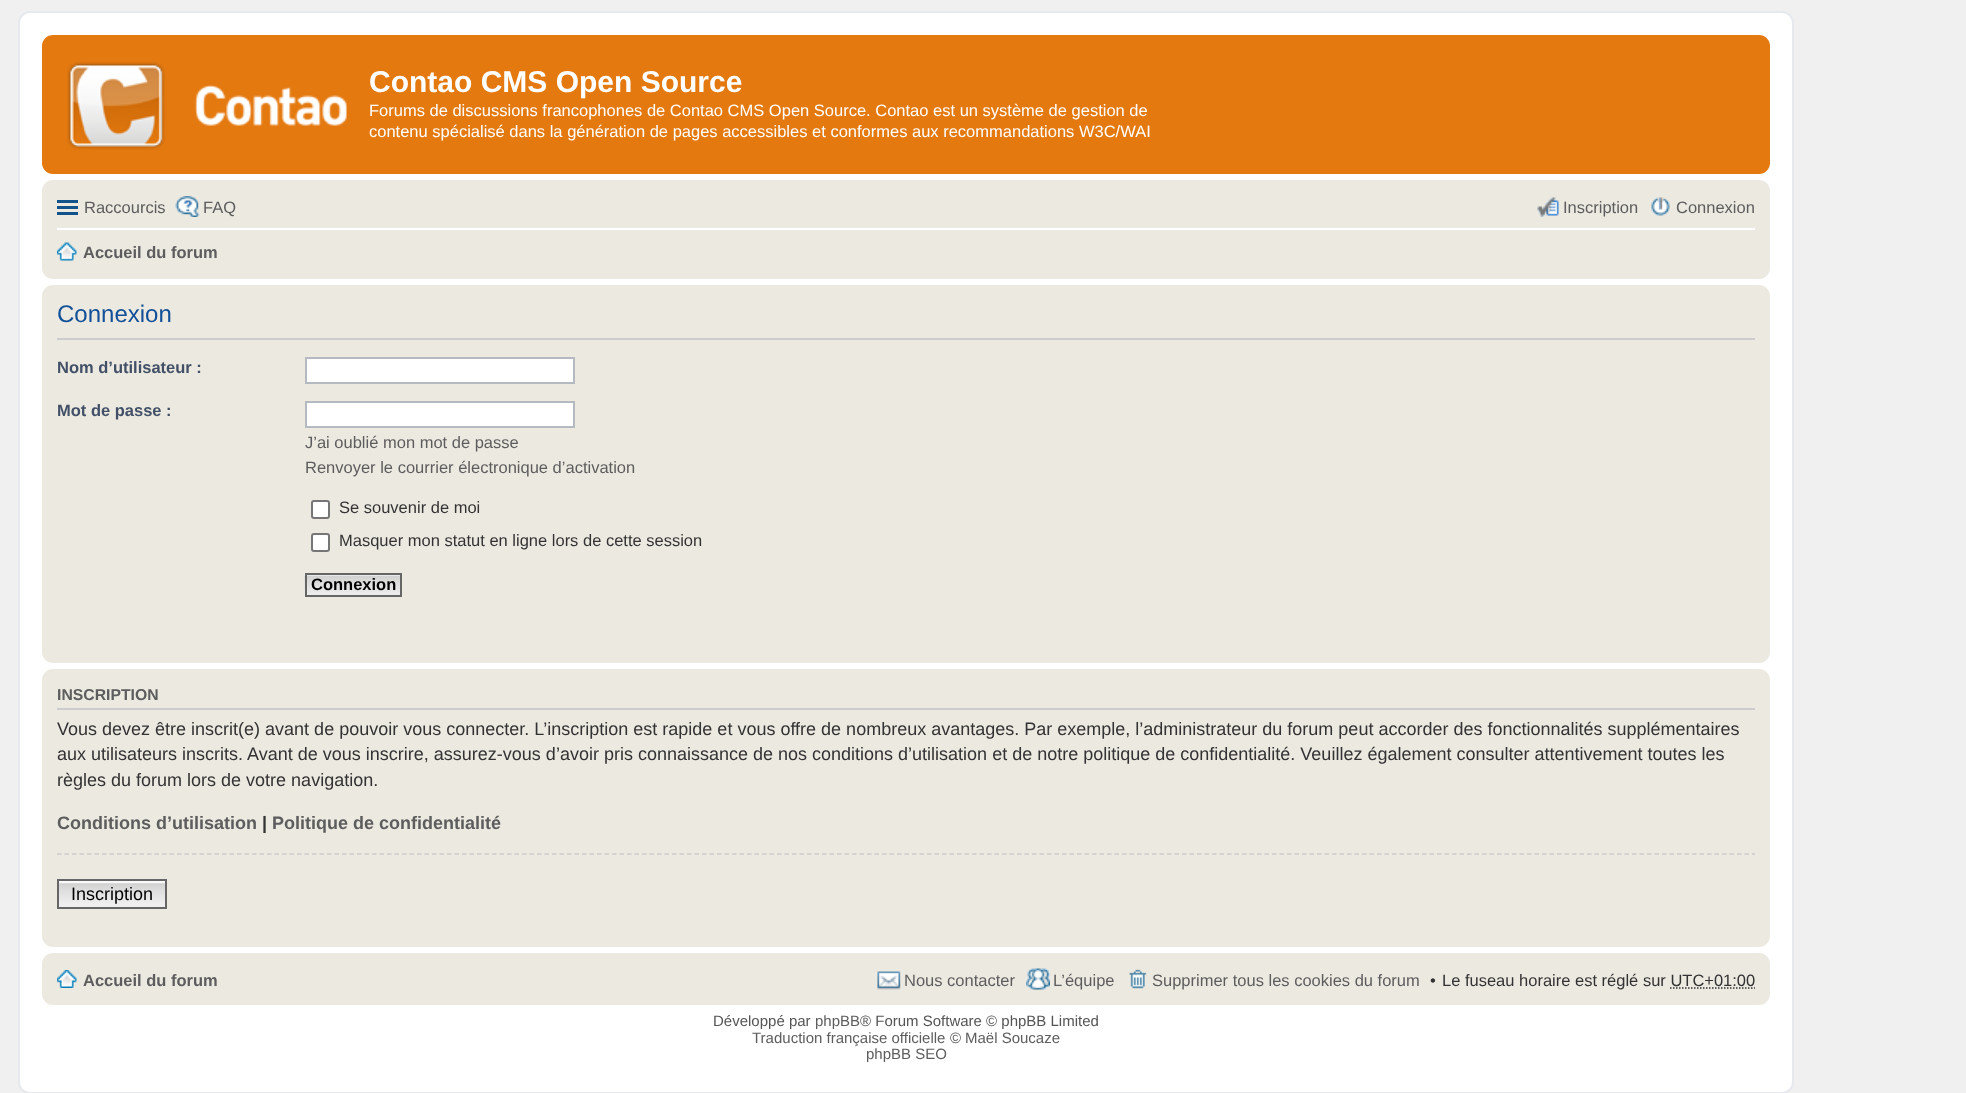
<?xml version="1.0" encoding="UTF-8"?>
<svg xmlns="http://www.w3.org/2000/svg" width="1966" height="1093">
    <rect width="100%" height="100%" fill="#F0F0F0"/>
    <rect x="19" y="12" width="1774" height="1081" rx="11" fill="#FFFFFF" stroke="#E6E9ED" stroke-width="2"/>
    <rect x="42" y="35" width="1728" height="139" rx="11" fill="#E47910"/>
    <image x="67" y="62" width="280" height="88" href="img_01.png"/>
    <text x="369" y="92" font-family="Liberation Sans" font-size="30" font-weight="700" fill="#FFFFFF">Contao CMS Open Source</text>
    <text font-family="Liberation Sans" font-size="16.5" fill="#FFFFFF">
        <tspan x="369" y="116">Forums de discussions francophones de Contao CMS Open Source. Contao est un système de gestion de</tspan>
        <tspan x="369" y="137">contenu spécialisé dans la génération de pages accessibles et conformes aux recommandations W3C/WAI</tspan>
    </text>
    <rect x="42" y="180" width="1728" height="99" rx="11" fill="#ECE9E1"/>
    <rect x="57" y="200" width="21" height="3" fill="#105289"/>
    <rect x="57" y="206" width="21" height="3" fill="#105289"/>
    <rect x="57" y="212" width="21" height="3" fill="#105289"/>
    <text x="84" y="213" font-family="Liberation Sans" font-size="16.5" fill="#5D5D5D">Raccourcis</text>
    <image x="175" y="196" width="25" height="21" href="img_02.png"/>
    <text x="203" y="213" font-family="Liberation Sans" font-size="16.5" fill="#5D5D5D">FAQ</text>
    <image x="1537" y="197" width="22" height="20" href="img_03.png"/>
    <text x="1563" y="213" font-family="Liberation Sans" font-size="16.5" fill="#5D5D5D">Inscription</text>
    <image x="1651" y="197" width="19" height="19" href="img_04.png"/>
    <text x="1676" y="213" font-family="Liberation Sans" font-size="16.5" fill="#5D5D5D">Connexion</text>
    <rect x="57" y="228" width="1698" height="2" fill="#FFFFFF"/>
    <image x="57" y="242" width="20" height="19" href="img_05.png"/>
    <text x="83" y="258" font-family="Liberation Sans" font-size="16.5" font-weight="700" fill="#5D5D5D">Accueil du forum</text>
    <rect x="42" y="285" width="1728" height="378" rx="11" fill="#ECE9E1"/>
    <rect x="57" y="338" width="1698" height="2" fill="#CCCCCC"/>
    <text x="57" y="322" font-family="Liberation Sans" font-size="24" fill="#115098">Connexion</text>
    <text x="57" y="373" font-family="Liberation Sans" font-size="16.5" font-weight="700" fill="#425067">Nom d’utilisateur :</text>
    <rect x="306" y="358" width="268" height="25" fill="#FFFFFF" stroke="#B4BAC0" stroke-width="2"/>
    <text x="57" y="416" font-family="Liberation Sans" font-size="16.5" font-weight="700" fill="#425067">Mot de passe :</text>
    <rect x="306" y="402" width="268" height="25" fill="#FFFFFF" stroke="#B4BAC0" stroke-width="2"/>
    <text font-family="Liberation Sans" font-size="16.5" fill="#5D5D5D">
        <tspan x="305" y="448">J’ai oublié mon mot de passe</tspan>
        <tspan x="305" y="473">Renvoyer le courrier électronique d’activation</tspan>
    </text>
    <rect x="312" y="501" width="17" height="17" rx="2" fill="#FFFFFF" stroke="#767676" stroke-width="2"/>
    <text x="339" y="513" font-family="Liberation Sans" font-size="16.5" fill="#333333">Se souvenir de moi</text>
    <rect x="312" y="534" width="17" height="17" rx="2" fill="#FFFFFF" stroke="#767676" stroke-width="2"/>
    <text x="339" y="546" font-family="Liberation Sans" font-size="16.5" fill="#333333">Masquer mon statut en ligne lors de cette session</text>
    <image x="304" y="574" width="96" height="23" href="img_06.png"/>
    <rect x="306" y="574" width="95" height="22" fill="none" stroke="#666666" stroke-width="2"/>
    <text x="311" y="590" font-family="Liberation Sans" font-size="16.5" font-weight="700" fill="#000000">Connexion</text>
    <rect x="42" y="669" width="1728" height="278" rx="11" fill="#ECE9E1"/>
    <rect x="57" y="708" width="1698" height="2" fill="#CCCCCC"/>
    <text x="57" y="700" font-family="Liberation Sans" font-size="15.75" font-weight="700" fill="#5D5D5D">INSCRIPTION</text>
    <text font-family="Liberation Sans" font-size="18" fill="#333333">
        <tspan x="57" y="735">Vous devez être inscrit(e) avant de pouvoir vous connecter. L’inscription est rapide et vous offre de nombreux avantages. Par exemple, l’administrateur du forum peut accorder des fonctionnalités supplémentaires</tspan>
        <tspan x="57" y="760">aux utilisateurs inscrits. Avant de vous inscrire, assurez-vous d’avoir pris connaissance de nos conditions d’utilisation et de notre politique de confidentialité. Veuillez également consulter attentivement toutes les</tspan>
        <tspan x="57" y="786">règles du forum lors de votre navigation.</tspan>
    </text>
    <text x="57" y="829" font-family="Liberation Sans" font-size="18" font-weight="700" fill="#5D5D5D">Conditions d’utilisation</text>
    <text x="262" y="829" font-family="Liberation Sans" font-size="18" font-weight="700" fill="#333333">|</text>
    <text x="272" y="829" font-family="Liberation Sans" font-size="18" font-weight="700" fill="#5D5D5D">Politique de confidentialité</text>
    <path d="M 57 854 H 1755" fill="none" stroke="#CCCCCC" stroke-width="1.5" stroke-dasharray="4.5 3"/>
    <image x="59" y="883" width="106" height="24" href="img_07.png"/>
    <rect x="59" y="881" width="106" height="2" fill="#FAFAFA"/>
    <rect x="58" y="880" width="108" height="28" fill="none" stroke="#666666" stroke-width="2"/>
    <text x="71" y="900" font-family="Liberation Sans" font-size="18" fill="#000000">Inscription</text>
    <rect x="42" y="953" width="1728" height="52" rx="11" fill="#ECE9E1"/>
    <image x="57" y="970" width="20" height="18" href="img_08.png"/>
    <text x="83" y="986" font-family="Liberation Sans" font-size="16.5" font-weight="700" fill="#5D5D5D">Accueil du forum</text>
    <image x="877" y="971" width="24" height="19" href="img_09.png"/>
    <text x="904" y="986" font-family="Liberation Sans" font-size="16.5" fill="#5D5D5D">Nous contacter</text>
    <image x="1026" y="968" width="24" height="22" href="img_10.png"/>
    <text x="1053" y="986" font-family="Liberation Sans" font-size="16.5" fill="#5D5D5D">L’équipe</text>
    <image x="1129" y="969" width="18" height="20" href="img_11.png"/>
    <text x="1152" y="986" font-family="Liberation Sans" font-size="16.5" fill="#5D5D5D">Supprimer tous les cookies du forum</text>
    <text x="1430" y="986" font-family="Liberation Sans" font-size="16.5" fill="#333333">•</text>
    <text x="1442" y="986" font-family="Liberation Sans" font-size="16.5" fill="#333333">Le fuseau horaire est réglé sur UTC+01:00</text>
    <path d="M 1670 988 H 1755" fill="none" stroke="#333333" stroke-width="1.5" stroke-dasharray="1.5 1.5"/>
    <text x="713" y="1026" font-family="Liberation Sans" font-size="15" fill="#555555">Développé par</text>
    <text x="815" y="1026" font-family="Liberation Sans" font-size="15" fill="#5D5D5D">phpBB</text>
    <text x="860" y="1026" font-family="Liberation Sans" font-size="15" fill="#555555">® Forum Software © phpBB Limited</text>
    <text x="752" y="1043" font-family="Liberation Sans" font-size="15" fill="#5D5D5D">Traduction française officielle</text>
    <text x="950" y="1043" font-family="Liberation Sans" font-size="15" fill="#555555">©</text>
    <text x="965" y="1043" font-family="Liberation Sans" font-size="15" fill="#5D5D5D">Maël Soucaze</text>
    <text x="866" y="1059" font-family="Liberation Sans" font-size="15" fill="#5D5D5D">phpBB SEO</text>
</svg>
